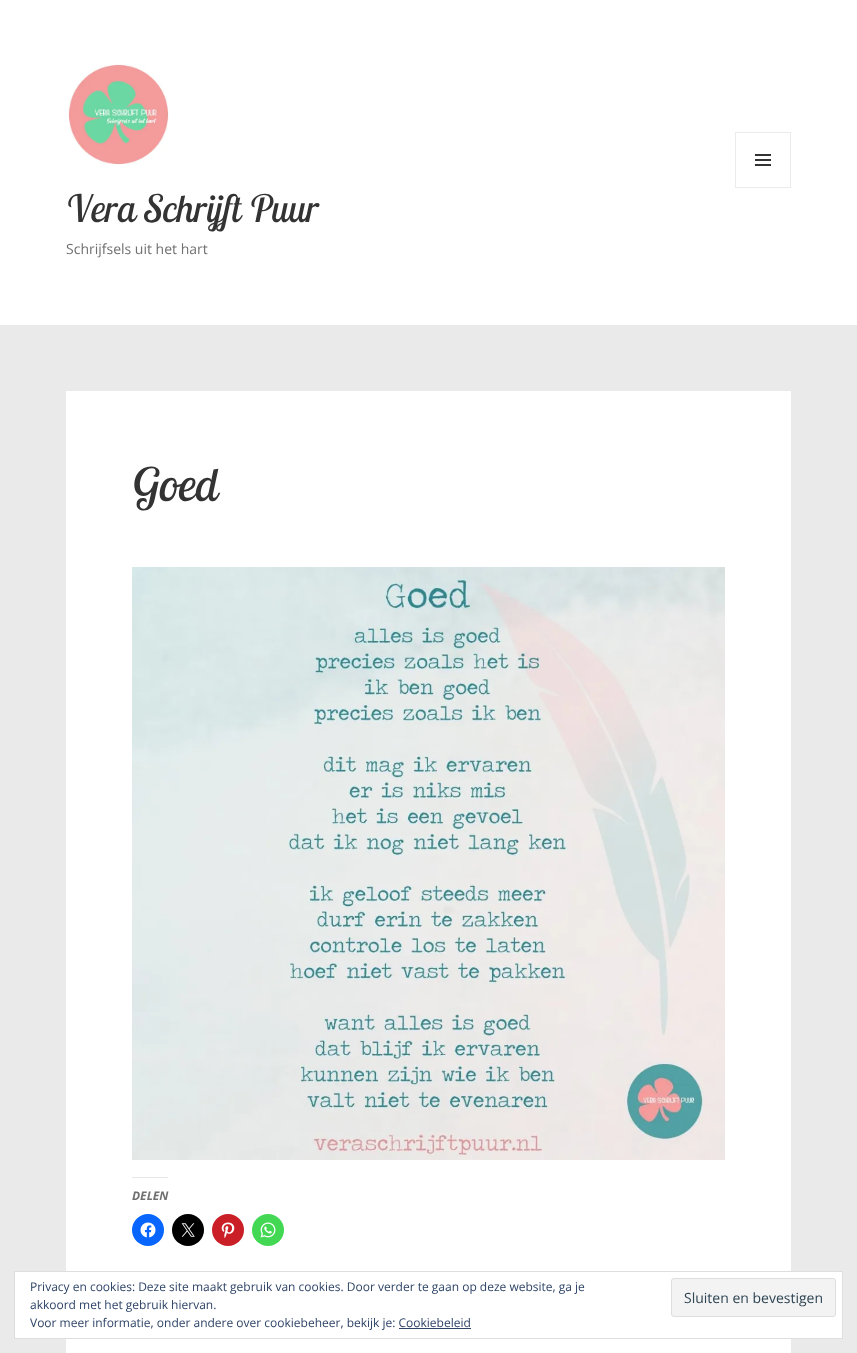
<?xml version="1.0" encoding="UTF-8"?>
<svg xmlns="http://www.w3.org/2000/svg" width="857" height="1353">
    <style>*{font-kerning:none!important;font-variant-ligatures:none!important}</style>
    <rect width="100%" height="100%" fill="#EBEAEA"/>
    <rect x="0" y="0" width="857" height="325" fill="#FFFFFF"/>
    <image x="68" y="64" width="101" height="101" href="img_01.png"/>
    <rect x="735.5" y="132.5" width="55" height="55" fill="none" stroke="#EBEBEB"/>
    <image x="755" y="154" width="16" height="12" href="img_02.png"/>
    <text x="66" y="222" font-family="Lobster Two" font-size="37.75" font-style="italic" fill="#333333">Vera Schrijft Puur</text>
    <text x="66" y="254" font-family="Open Sans" font-size="14" fill="#707070">Schrijfsels uit het hart</text>
    <rect x="66" y="391" width="725" height="962" fill="#FFFFFF"/>
    <text x="132" y="501" font-family="Lobster Two" font-size="46" font-style="italic" fill="#333333">Goed</text>
    <image x="132" y="567" width="593" height="593" href="img_03.png"/>
    <rect x="132" y="1177" width="36" height="1" fill="#E7E7E8"/>
    <text x="132" y="1200" font-family="Noto Sans" font-size="12" font-weight="700" font-style="italic" fill="#707070">DELEN</text>
    <circle cx="148" cy="1230" r="16" fill="#0866FF"/>
    <image x="140" y="1222" width="16" height="16" href="img_04.png"/>
    <circle cx="188" cy="1230" r="16" fill="#000000"/>
    <image x="181" y="1223" width="14" height="14" href="img_05.png"/>
    <circle cx="228" cy="1230" r="16" fill="#CA1F27"/>
    <image x="221" y="1222" width="14" height="16" href="img_06.png"/>
    <circle cx="268" cy="1230" r="16" fill="#43D854"/>
    <image x="260" y="1222" width="16" height="16" href="img_07.png"/>
    <rect x="14.5" y="1271.5" width="828" height="67" fill="#FFFFFF" stroke="#DEDEDE"/>
    <text font-family="Open Sans" font-size="12" fill="#2E4467">
        <tspan x="30" y="1291">Privacy en cookies: Deze site maakt gebruik van cookies. Door verder te gaan op deze website, ga je</tspan>
        <tspan x="30" y="1309">akkoord met het gebruik hiervan.</tspan>
    </text>
    <rect x="671.5" y="1278.5" width="164" height="38" rx="2.5" fill="#F3F3F3" stroke="#DEDEDE"/>
    <text x="684" y="1303" font-family="Open Sans" font-size="14" fill="#2E4453">Sluiten en bevestigen</text>
    <text x="30" y="1327" font-family="Open Sans" font-size="12" fill="#2E4467">Voor meer informatie, onder andere over cookiebeheer, bekijk je: Cookiebeleid</text>
    <rect x="399" y="1328" width="72" height="1" fill="#2E4467"/>
</svg>
